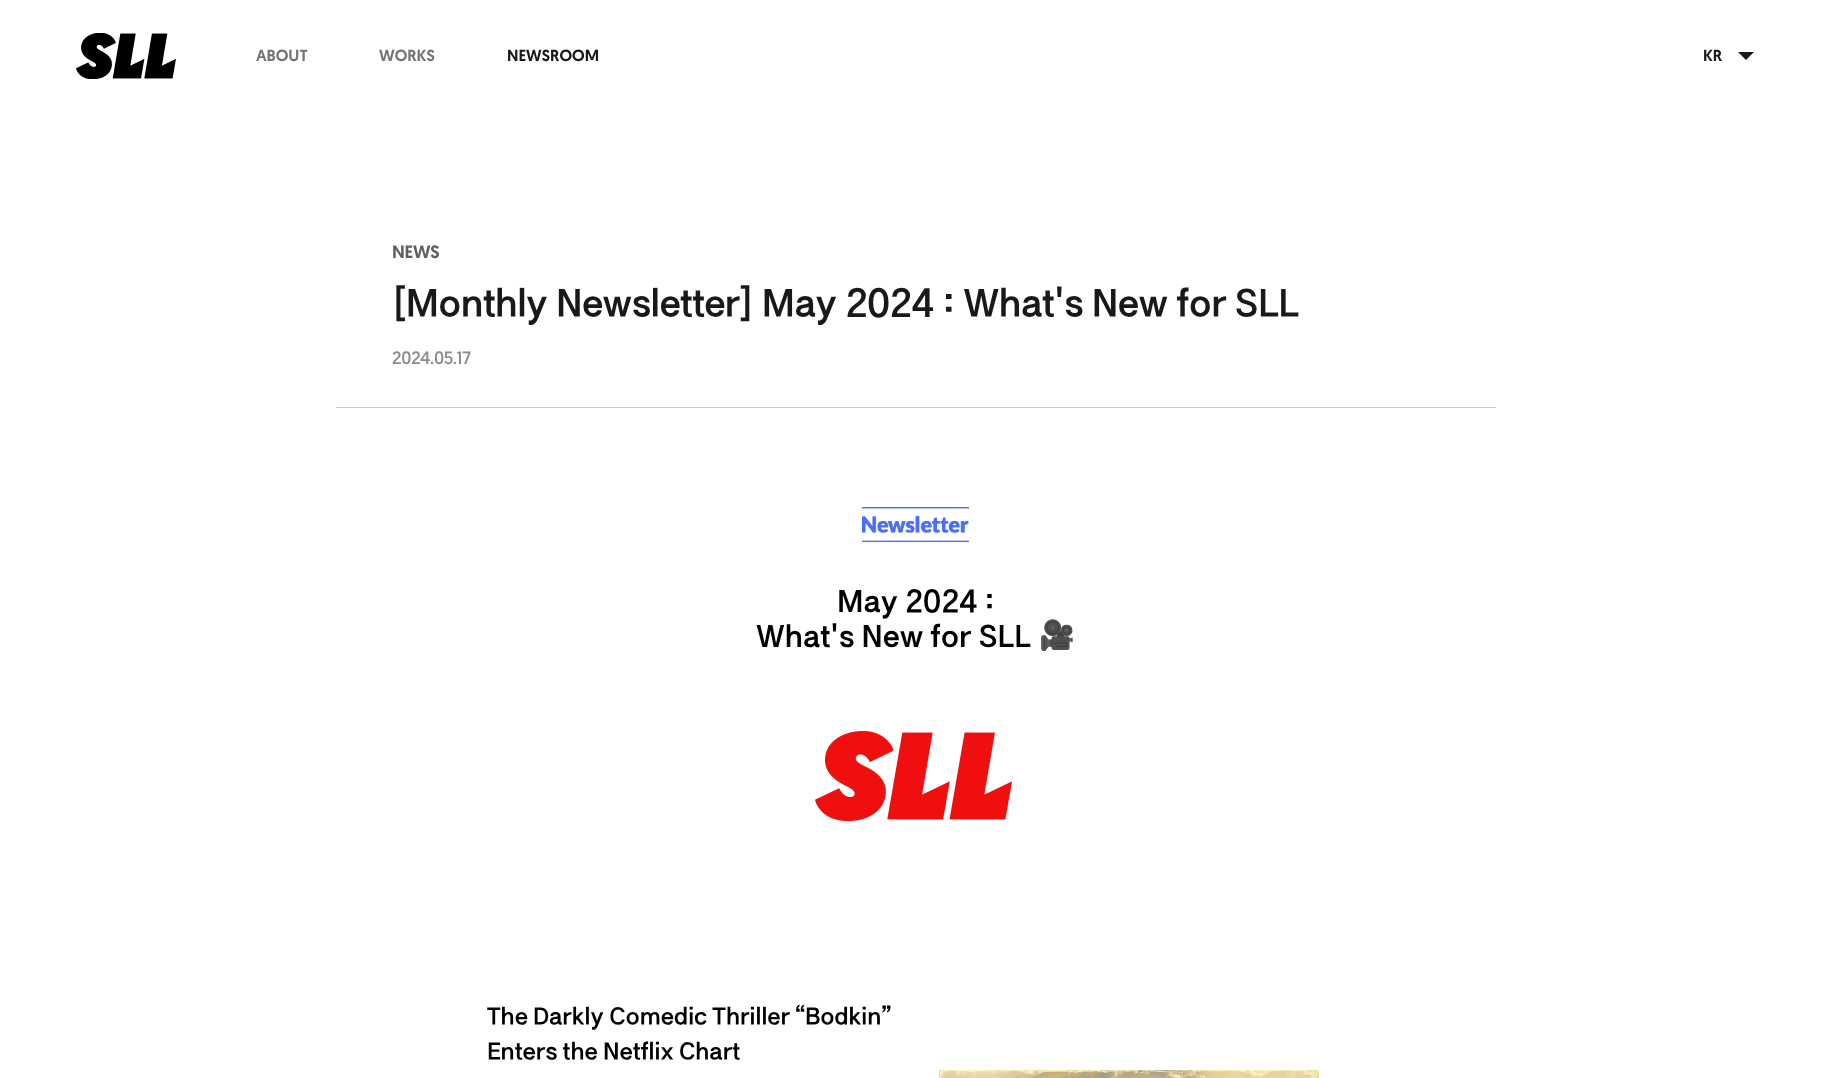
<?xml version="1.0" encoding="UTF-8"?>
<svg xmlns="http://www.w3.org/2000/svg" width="1831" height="1078">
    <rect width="100%" height="100%" fill="#FFFFFF"/>
    <image x="76" y="33" width="100" height="46" href="img_01.png"/>
    <text x="256" y="61" font-family="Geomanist" font-size="16" font-weight="500" fill="#757575">ABOUT</text>
    <text x="379" y="61" font-family="Geomanist" font-size="16" font-weight="500" fill="#757575">WORKS</text>
    <text x="507" y="61" font-family="Geomanist" font-size="16" font-weight="500" fill="#191919">NEWSROOM</text>
    <text x="1703" y="61" font-family="Geomanist" font-size="16" font-weight="500" fill="#191919">KR</text>
    <path d="M 1746 60 L 1738 52 H 1754 Z" fill="#191919"/>
    <rect x="336" y="407" width="1160" height="1" fill="#CDCDCD"/>
    <text x="392" y="258" font-family="Geomanist" font-size="18" font-weight="500" letter-spacing="-0.25" fill="#606060">NEWS</text>
    <text x="392" y="314" word-spacing="-1.5" font-family="'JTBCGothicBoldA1'" font-size="36" font-weight="700" letter-spacing="-0.55" fill="#191919">[Monthly Newsletter] May 2024 : What's New for SLL</text>
    <text x="392" y="364" font-family="Geomanist" font-size="18" letter-spacing="-0.25" fill="#8C8C8C">2024.05.17</text>
    <image x="862" y="507" width="107" height="35" href="img_02.png"/>
    <text x="837" y="610" word-spacing="-1.5" font-family="'JTBCGothicBoldA1'" font-size="28.75" font-weight="700" fill="#000000">May 2024 :</text>
    <text x="756" y="645" word-spacing="-1.5" font-family="'JTBCGothicBoldA1'" font-size="28.75" font-weight="700" fill="#000000">What's New for SLL</text>
    <text x="1039" y="645" font-family="Noto Color Emoji" font-size="28.75" font-weight="700" fill="#000000">🎥</text>
    <image x="815" y="731" width="197" height="90" href="img_03.png"/>
    <text font-family="'JTBCGothicBoldA1'" font-size="22.4" font-weight="700" fill="#000000">
        <tspan x="487" y="1023" word-spacing="-1.5">The Darkly Comedic Thriller “Bodkin”</tspan>
        <tspan x="487" y="1058" word-spacing="-1.5">Enters the Netflix Chart</tspan>
    </text>
    <image x="939" y="1070" width="380" height="8" href="img_04.png"/>
</svg>
